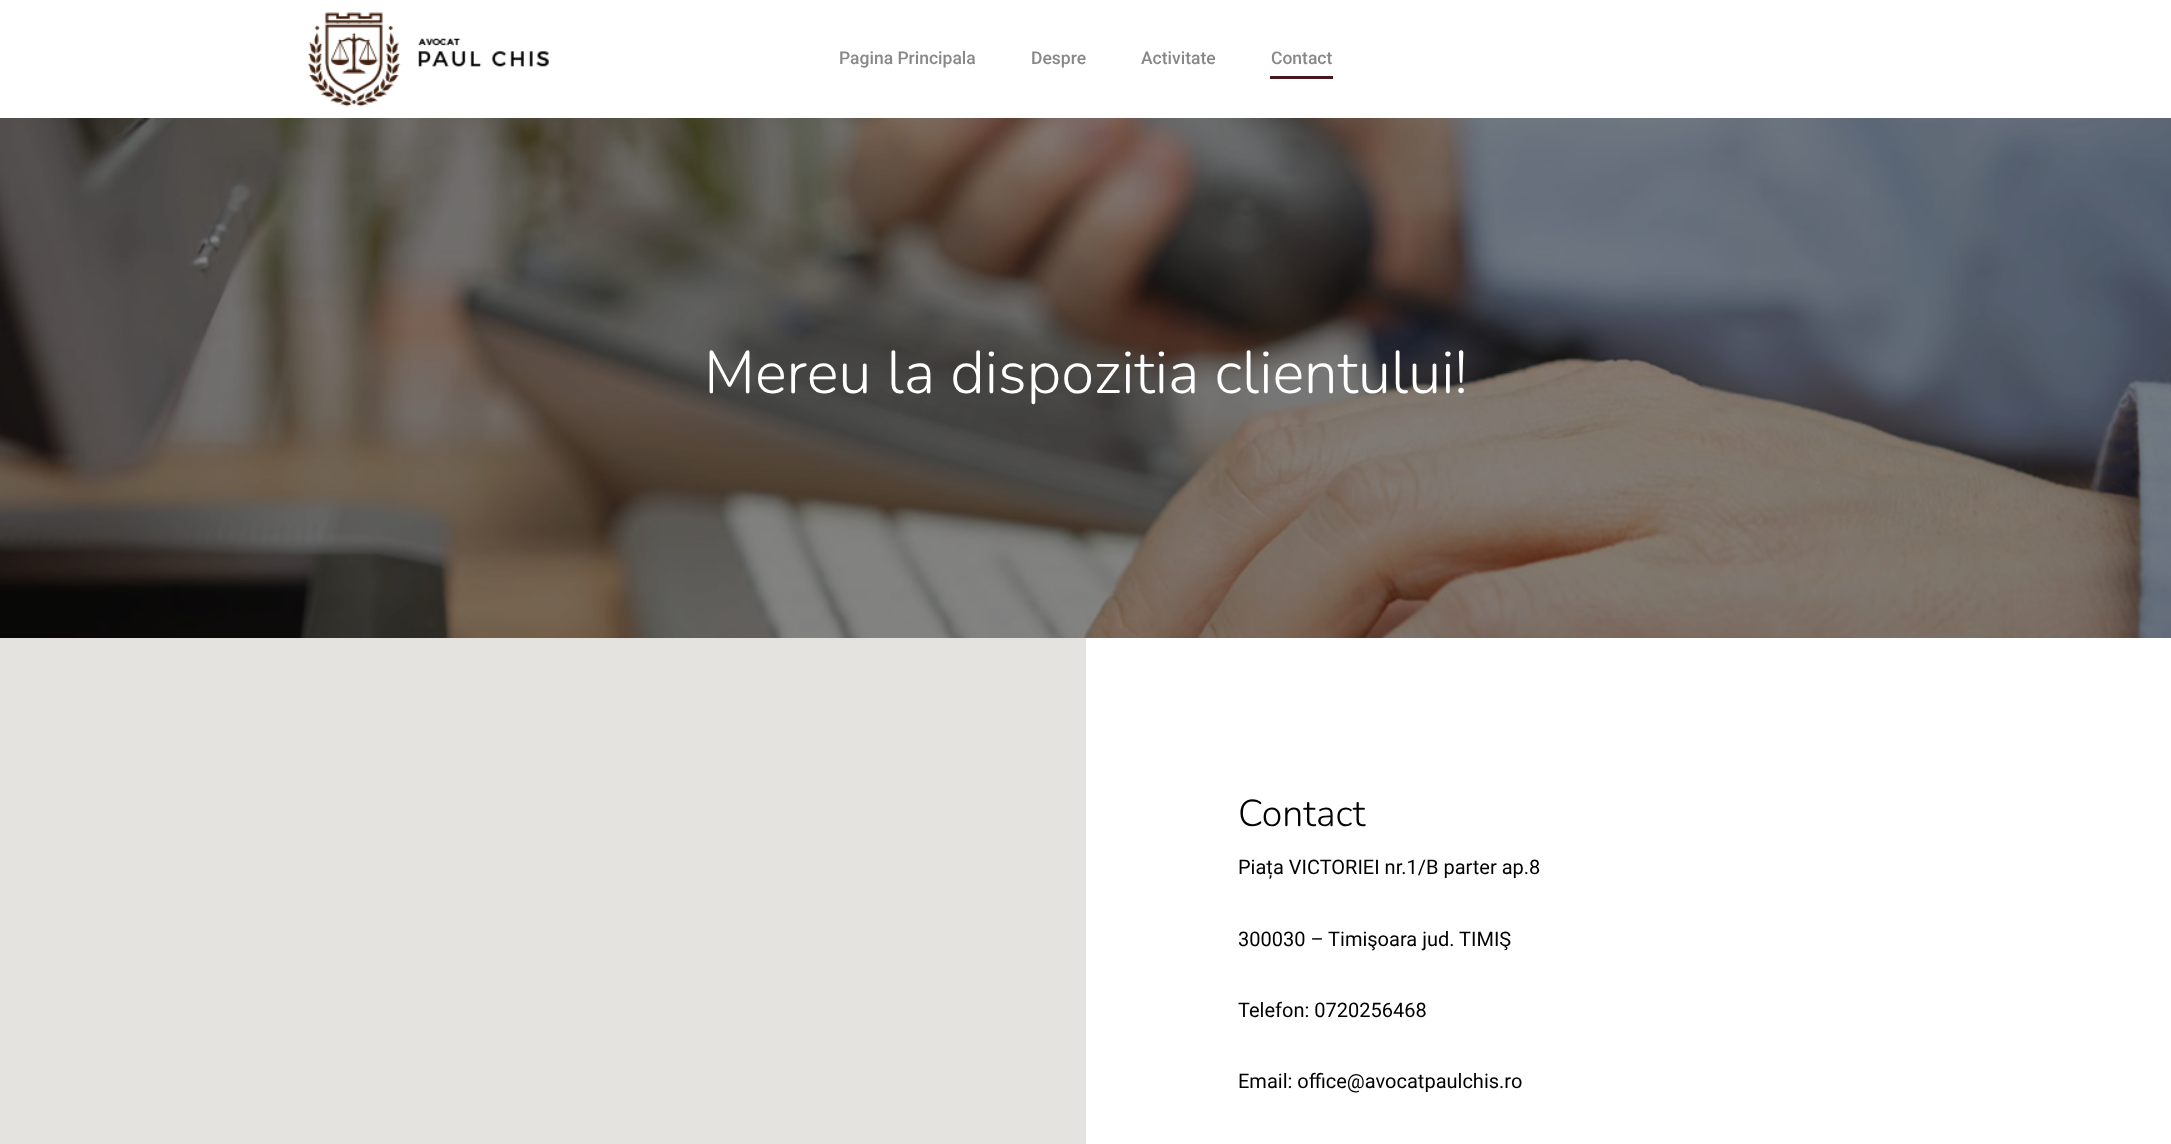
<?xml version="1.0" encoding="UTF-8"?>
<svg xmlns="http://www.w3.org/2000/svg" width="2171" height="1144">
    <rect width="100%" height="100%" fill="#FFFFFF"/>
    <image x="307" y="12" width="242" height="95" href="img_01.png"/>
    <text x="839" y="64" font-family="Roboto" font-size="17.5" font-weight="500" fill="#888888">Pagina Principala</text>
    <text x="1031" y="64" font-family="Roboto" font-size="17.5" font-weight="500" fill="#888888">Despre</text>
    <text x="1141" y="64" font-family="Roboto" font-size="17.5" font-weight="500" fill="#888888">Activitate</text>
    <text x="1271" y="64" font-family="Roboto" font-size="17.5" font-weight="500" fill="#888888">Contact</text>
    <rect x="1270" y="76" width="63" height="3" fill="#47171C"/>
    <image x="0" y="118" width="2171" height="520" href="img_02.png"/>
    <text x="704" y="393" font-family="Nunito" font-size="60" font-weight="300" fill="#FFFFFF">Mereu la dispozitia clientului!</text>
    <rect x="0" y="638" width="1086" height="506" fill="#E5E3DF"/>
    <text x="1238" y="826" font-family="Nunito" font-size="37.5" font-weight="300" fill="#000000">Contact</text>
    <text x="1238" y="874" font-family="Roboto" font-size="20" fill="#000000">Piața VICTORIEI nr.1/B parter ap.8</text>
    <text x="1238" y="946" font-family="Roboto" font-size="20" fill="#000000">300030 – Timişoara jud. TIMIŞ</text>
    <text x="1238" y="1017" font-family="Roboto" font-size="20" fill="#000000">Telefon: 0720256468</text>
    <text x="1238" y="1088" font-family="Roboto" font-size="20" fill="#000000">Email: office@avocatpaulchis.ro</text>
</svg>
